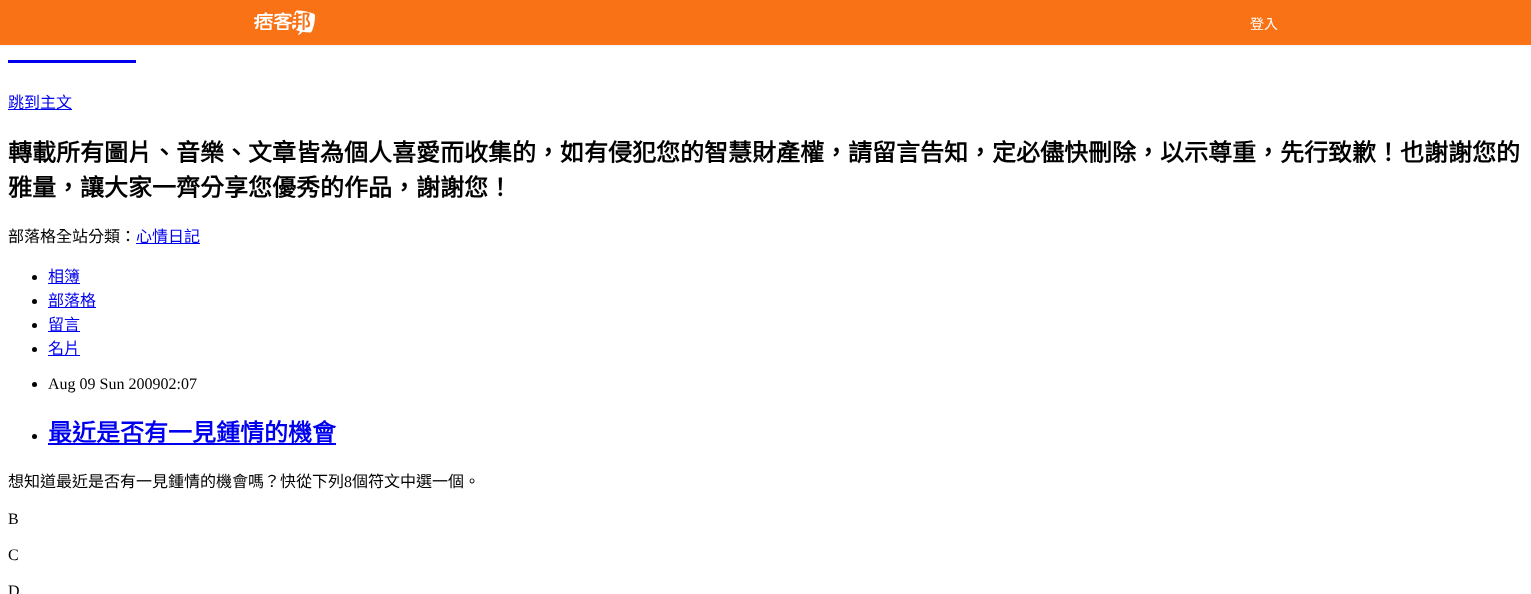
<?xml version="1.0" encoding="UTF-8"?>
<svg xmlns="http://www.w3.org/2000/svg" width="1531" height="594">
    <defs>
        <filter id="blur1" x="-50%" y="-200%" width="200%" height="500%"><feGaussianBlur stdDeviation="1"/></filter>
    </defs>
    <rect width="100%" height="100%" fill="#FFFFFF"/>
    <rect x="0" y="1" width="1531" height="45" fill="#000000" fill-opacity="0.05" filter="url(#blur1)"/>
    <rect x="0" y="0" width="1531" height="45" fill="#F97316"/>
    <image x="254" y="10" width="61" height="25" href="img_01.png"/>
    <text x="1250" y="29" font-family="Noto Sans CJK TC" font-size="14" fill="#FFFFFF">登入</text>
    <rect x="8" y="60" width="128" height="3" fill="#0000EE"/>
    <rect x="8" y="109" width="64" height="1" fill="#0000EE"/>
    <text x="8" y="108" font-family="Noto Sans CJK TC" font-size="16" fill="#0000EE">跳到主文</text>
    <text font-family="Noto Sans CJK TC" font-size="24" font-weight="700" fill="#000000">
        <tspan x="8" y="161">轉載所有圖片、音樂、文章皆為個人喜愛而收集的，如有侵犯您的智慧財產權，請留言告知，定必儘快刪除，以示尊重，先行致歉！也謝謝您的</tspan>
        <tspan x="8" y="196">雅量，讓大家一齊分享您優秀的作品，謝謝您！</tspan>
    </text>
    <text x="8" y="242" font-family="Noto Sans CJK TC" font-size="16" fill="#000000">部落格全站分類：</text>
    <rect x="136" y="243" width="64" height="1" fill="#0000EE"/>
    <text x="136" y="242" font-family="Noto Sans CJK TC" font-size="16" fill="#0000EE">心情日記</text>
    <circle cx="34.5" cy="277.5" r="2.5" fill="#000000"/>
    <rect x="48" y="283" width="32" height="1" fill="#0000EE"/>
    <text x="48" y="282" font-family="Noto Sans CJK TC" font-size="16" fill="#0000EE">相簿</text>
    <circle cx="34.5" cy="301.5" r="2.5" fill="#000000"/>
    <rect x="48" y="307" width="48" height="1" fill="#0000EE"/>
    <text x="48" y="306" font-family="Noto Sans CJK TC" font-size="16" fill="#0000EE">部落格</text>
    <circle cx="34.5" cy="325.5" r="2.5" fill="#000000"/>
    <rect x="48" y="331" width="32" height="1" fill="#0000EE"/>
    <text x="48" y="330" font-family="Noto Sans CJK TC" font-size="16" fill="#0000EE">留言</text>
    <circle cx="34.5" cy="349.5" r="2.5" fill="#000000"/>
    <rect x="48" y="355" width="32" height="1" fill="#0000EE"/>
    <text x="48" y="354" font-family="Noto Sans CJK TC" font-size="16" fill="#0000EE">名片</text>
    <circle cx="34.5" cy="384.5" r="2.5" fill="#000000"/>
    <text x="48" y="389" font-family="Liberation Serif" font-size="16" fill="#000000">Aug 09 Sun 200902:07</text>
    <circle cx="34.5" cy="436.5" r="2.5" fill="#000000"/>
    <rect x="48" y="443" width="288" height="2" fill="#0000EE"/>
    <text x="48" y="441" font-family="Noto Sans CJK TC" font-size="24" font-weight="700" fill="#0000EE">最近是否有一見鍾情的機會</text>
    <text x="8" y="487" font-family="Noto Sans CJK TC" font-size="16" fill="#000000">想知道最近是否有一見鍾情的機會嗎？快從下列</text>
    <text x="344" y="487" font-family="Liberation Serif" font-size="16" fill="#000000">8</text>
    <text x="352" y="487" font-family="Noto Sans CJK TC" font-size="16" fill="#000000">個符文中選一個。</text>
    <text x="8" y="524" font-family="Liberation Serif" font-size="16" fill="#000000">B</text>
    <text x="8" y="560" font-family="Liberation Serif" font-size="16" fill="#000000">C</text>
    <text x="8" y="596" font-family="Liberation Serif" font-size="16" fill="#000000">D</text>
</svg>
